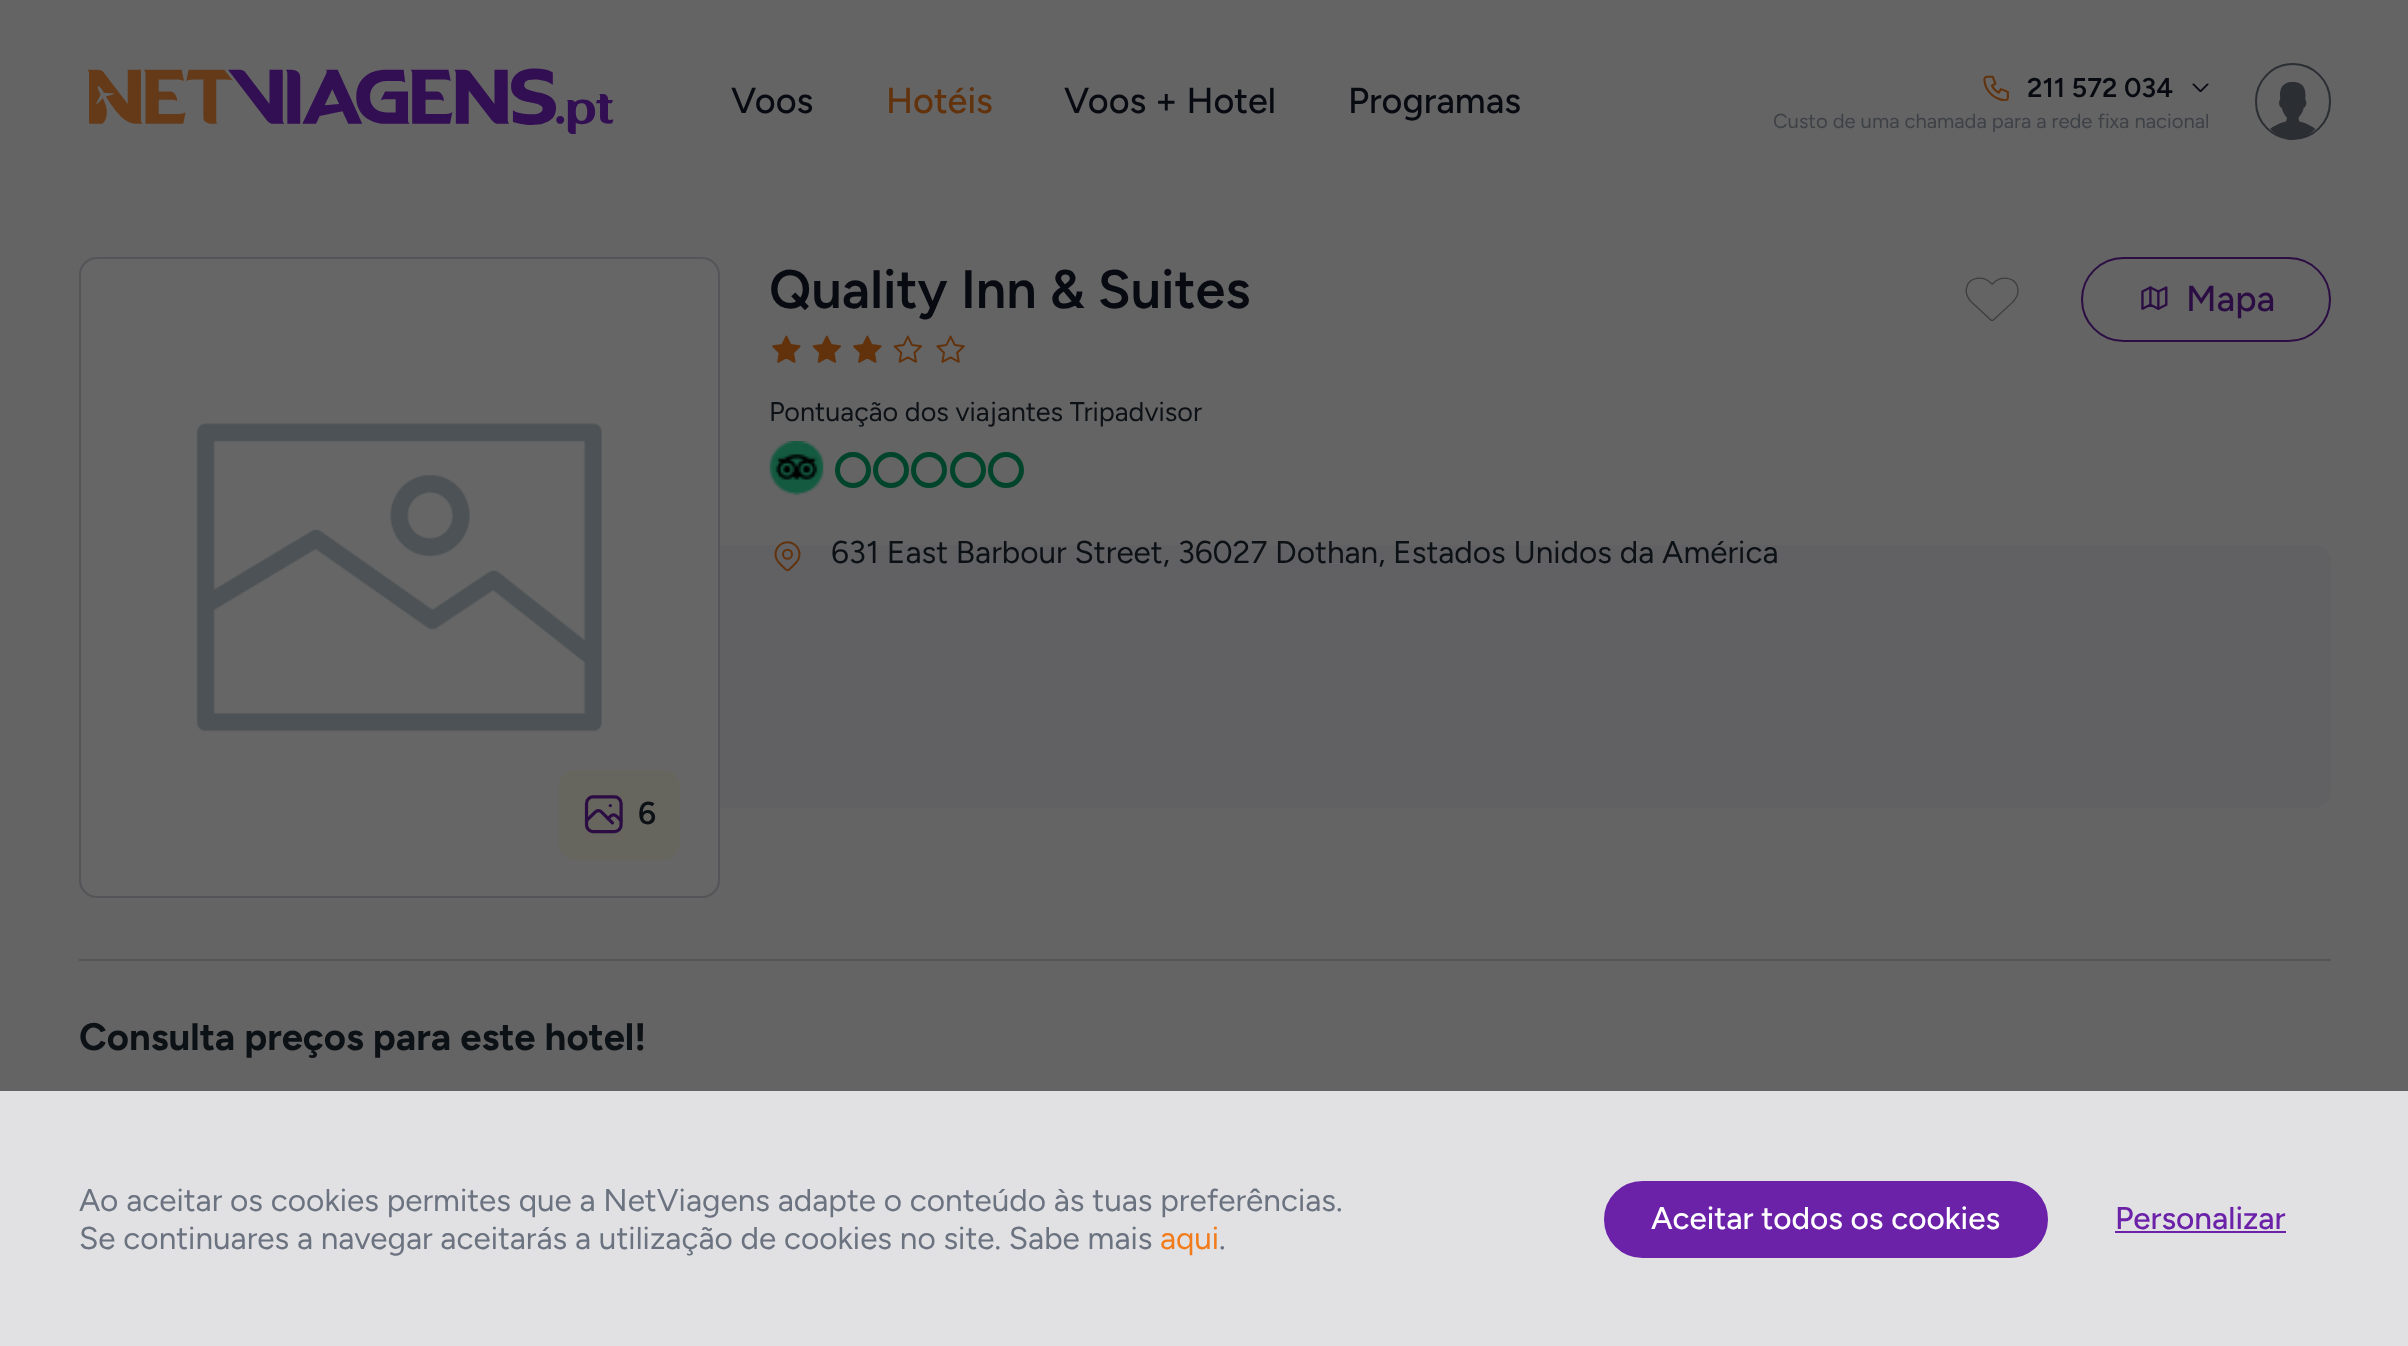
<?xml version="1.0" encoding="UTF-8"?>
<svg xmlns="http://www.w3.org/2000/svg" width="2408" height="1346">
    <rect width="100%" height="100%" fill="#646465"/>
    <image x="87" y="68" width="527" height="66" href="img_01.png"/>
    <text x="731" y="113" font-family="Figtree" font-size="36" font-weight="500" fill="#070A10">Voos</text>
    <text x="886" y="113" font-family="Figtree" font-size="36" font-weight="500" fill="#61320B">Hotéis</text>
    <text x="1064" y="113" font-family="Figtree" font-size="36" font-weight="500" fill="#070A10">Voos + Hotel</text>
    <text x="1348" y="113" font-family="Figtree" font-size="36" font-weight="500" fill="#070A10">Programas</text>
    <image x="1983" y="75" width="26" height="26" href="img_02.png"/>
    <text x="2027" y="97" font-family="Figtree" font-size="27" font-weight="600" fill="#070A10">211 572 034</text>
    <image x="2192" y="83" width="17" height="9" href="img_03.png"/>
    <text x="1773" y="128" font-family="Figtree" font-size="20.25" fill="#3E4146">Custo de uma chamada para a rede fixa nacional</text>
    <rect x="2256" y="64" width="74" height="75" rx="37" fill="none" stroke="#2B2E33" stroke-width="2"/>
    <image x="2270" y="82" width="46" height="56" href="img_04.png"/>
    <rect x="79" y="959" width="2252" height="2" fill="#545558"/>
    <text x="769" y="308" font-family="Figtree" font-size="54" font-weight="600" fill="#070A10">Quality Inn &amp; Suites</text>
    <image x="772" y="335" width="29" height="28" href="img_05.png"/>
    <image x="812" y="335" width="29" height="28" href="img_06.png"/>
    <image x="853" y="335" width="29" height="28" href="img_05.png"/>
    <image x="893" y="335" width="29" height="28" href="img_07.png"/>
    <image x="936" y="335" width="29" height="28" href="img_08.png"/>
    <text x="769" y="421" font-family="Figtree" font-size="27" fill="#0C1116">Pontuação dos viajantes Tripadvisor</text>
    <image x="769" y="441" width="55" height="54" href="img_09.png"/>
    <circle cx="853" cy="470" r="15.5" fill="none" stroke="#00442B" stroke-width="5"/>
    <circle cx="891" cy="470" r="15.5" fill="none" stroke="#00442B" stroke-width="5"/>
    <circle cx="929" cy="470" r="15.5" fill="none" stroke="#00442B" stroke-width="5"/>
    <circle cx="968" cy="470" r="15.5" fill="none" stroke="#00442B" stroke-width="5"/>
    <circle cx="1006" cy="470" r="15.5" fill="none" stroke="#00442B" stroke-width="5"/>
    <image x="1965" y="277" width="54" height="44" href="img_10.png"/>
    <rect x="2082" y="258" width="248" height="83" rx="41.5" fill="none" stroke="#2B0D43" stroke-width="2"/>
    <image x="2141" y="286" width="27" height="24" href="img_11.png"/>
    <text x="2186" y="311" font-family="Figtree" font-size="36" font-weight="500" fill="#2B0D43">Mapa</text>
    <rect x="81" y="545" width="2250" height="263" rx="18" fill="#616163"/>
    <image x="774" y="541" width="27" height="30" href="img_12.png"/>
    <text x="831" y="563" font-family="Figtree" font-size="31.5" fill="#0C1116">631 East Barbour Street, 36027 Dothan, Estados Unidos da América</text>
    <rect x="80" y="258" width="639" height="639" rx="17" fill="#666666" stroke="#545558" stroke-width="2"/>
    <image x="196" y="423" width="406" height="309" href="img_13.png"/>
    <rect x="558" y="770" width="122" height="90" rx="18" fill="#66665E"/>
    <image x="584" y="795" width="39" height="39" href="img_14.png"/>
    <text x="638" y="824" font-family="Figtree" font-size="31.5" font-weight="600" fill="#0C1116">6</text>
    <text x="79" y="1050" font-family="Figtree" font-size="38.25" font-weight="700" fill="#0C1116">Consulta preços para este hotel!</text>
    <rect x="0" y="1091" width="2408" height="255" fill="#E1E1E3"/>
    <text font-family="Figtree" font-size="31.5" fill="#6B7280">
        <tspan x="79" y="1211">Ao aceitar os cookies permites que a NetViagens adapte o conteúdo às tuas preferências.</tspan>
        <tspan x="79" y="1249">Se continuares a navegar aceitarás a utilização de cookies no site. Sabe mais</tspan>
    </text>
    <text x="1160" y="1249" font-family="Figtree" font-size="31.5" fill="#F27C1B">aqui</text>
    <text x="1219" y="1249" font-family="Figtree" font-size="31.5" fill="#6B7280">.</text>
    <rect x="1605" y="1182" width="442" height="75" rx="37.5" fill="#6B21A8" stroke="#6B21A8" stroke-width="2"/>
    <text x="1651" y="1229" font-family="Figtree" font-size="31.5" font-weight="500" fill="#FFFFFF">Aceitar todos os cookies</text>
    <text x="2115" y="1229" font-family="Figtree" font-size="31.5" font-weight="500" fill="#6B21A8">Personalizar</text>
    <rect x="2115" y="1231" width="171" height="2" fill="#6B21A8"/>
</svg>
